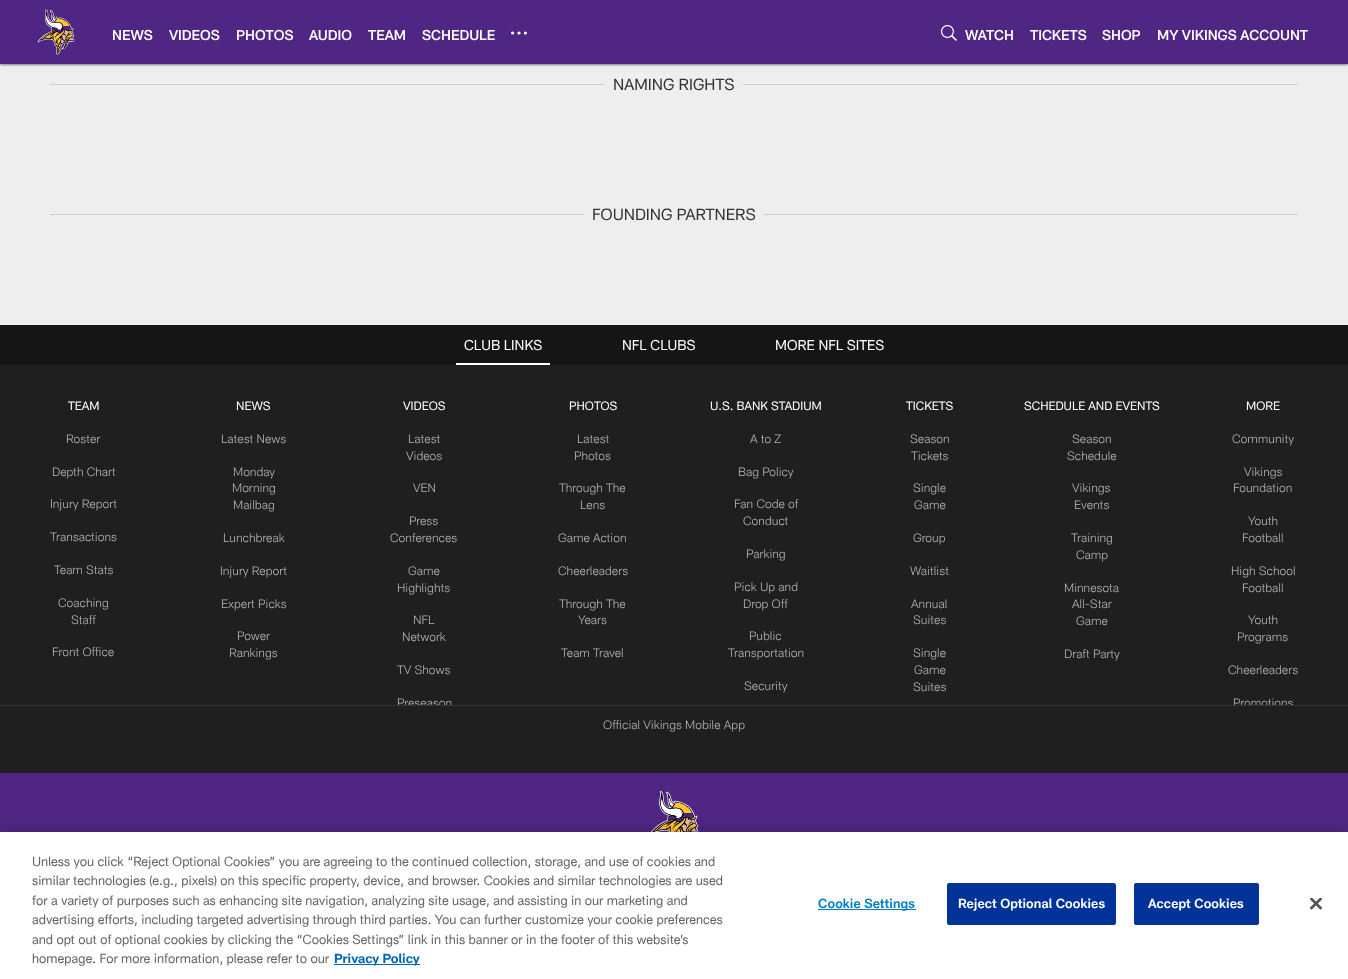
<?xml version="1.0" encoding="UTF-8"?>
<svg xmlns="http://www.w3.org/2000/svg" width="1348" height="979">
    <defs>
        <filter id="blur1" x="-50%" y="-200%" width="200%" height="500%"><feGaussianBlur stdDeviation="1"/></filter>
        <clipPath id="clip1"><rect x="0" y="325" width="1348" height="380"/></clipPath>
        <filter id="blur2" x="-50%" y="-200%" width="200%" height="500%"><feGaussianBlur stdDeviation="9"/></filter>
    </defs>
    <rect width="100%" height="100%" fill="#EEEEEE"/>
    <rect x="0" y="1" width="1348" height="64" fill="#000000" fill-opacity="0.47" filter="url(#blur1)"/>
    <rect x="0" y="0" width="1348" height="64" fill="#4F2683"/>
    <image x="37" y="9" width="38" height="46" href="img_01.png"/>
    <text x="112" y="40" font-family="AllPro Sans" font-size="14" font-weight="500" fill="#FFFFFF">NEWS</text>
    <text x="169" y="40" font-family="AllPro Sans" font-size="14" font-weight="500" fill="#FFFFFF">VIDEOS</text>
    <text x="236" y="40" font-family="AllPro Sans" font-size="14" font-weight="500" fill="#FFFFFF">PHOTOS</text>
    <text x="309" y="40" font-family="AllPro Sans" font-size="14" font-weight="500" fill="#FFFFFF">AUDIO</text>
    <text x="368" y="40" font-family="AllPro Sans" font-size="14" font-weight="500" fill="#FFFFFF">TEAM</text>
    <text x="422" y="40" font-family="AllPro Sans" font-size="14" font-weight="500" fill="#FFFFFF">SCHEDULE</text>
    <circle cx="525.4" cy="33" r="1.6" fill="#FFFFFF"/>
    <circle cx="519" cy="33" r="1.6" fill="#FFFFFF"/>
    <circle cx="512.6" cy="33" r="1.6" fill="#FFFFFF"/>
    <image x="941" y="25" width="16" height="16" href="img_02.png"/>
    <text x="965" y="40" font-family="AllPro Sans" font-size="14" font-weight="500" fill="#FFFFFF">WATCH</text>
    <text x="1030" y="40" font-family="AllPro Sans" font-size="14" font-weight="500" fill="#FFFFFF">TICKETS</text>
    <text x="1102" y="40" font-family="AllPro Sans" font-size="14" font-weight="500" fill="#FFFFFF">SHOP</text>
    <text x="1157" y="40" font-family="AllPro Sans" font-size="14" font-weight="500" fill="#FFFFFF">MY VIKINGS ACCOUNT</text>
    <rect x="50" y="84" width="555" height="1" fill="#CCCCCC"/>
    <text x="613" y="90" font-family="AllPro Sans" font-size="16" fill="#333333">NAMING RIGHTS</text>
    <rect x="743" y="84" width="555" height="1" fill="#CCCCCC"/>
    <rect x="50" y="214" width="534" height="1" fill="#CCCCCC"/>
    <text x="592" y="220" font-family="AllPro Sans" font-size="16" fill="#333333">FOUNDING PARTNERS</text>
    <rect x="764" y="214" width="534" height="1" fill="#CCCCCC"/>
    <rect x="0" y="365" width="1348" height="340" fill="#1F1F1F"/>
    <rect x="0" y="325" width="1348" height="40" fill="#151515"/>
    <rect x="456" y="363" width="94" height="2" fill="#FFFFFF"/>
    <text x="464" y="350" font-family="AllPro Sans" font-size="14" fill="#FFFFFF">CLUB LINKS</text>
    <text x="622" y="350" font-family="AllPro Sans" font-size="14" fill="#FFFFFF">NFL CLUBS</text>
    <text x="775" y="350" font-family="AllPro Sans" font-size="14" fill="#FFFFFF">MORE NFL SITES</text>
    <text x="68" y="410" font-family="AllPro Sans" font-size="12" fill="#FFFFFF">TEAM</text>
    <text x="66" y="443" font-family="AllPro Sans" font-size="12" font-weight="300" fill="#B2B2B2">Roster</text>
    <text x="52" y="476" font-family="AllPro Sans" font-size="12" font-weight="300" fill="#B2B2B2">Depth Chart</text>
    <text x="50" y="508" font-family="AllPro Sans" font-size="12" font-weight="300" fill="#B2B2B2">Injury Report</text>
    <text x="50" y="541" font-family="AllPro Sans" font-size="12" font-weight="300" fill="#B2B2B2">Transactions</text>
    <text x="54" y="574" font-family="AllPro Sans" font-size="12" font-weight="300" fill="#B2B2B2">Team Stats</text>
    <text x="58" y="607" font-family="AllPro Sans" font-size="12" font-weight="300" fill="#B2B2B2">Coaching</text>
    <text x="71" y="624" font-family="AllPro Sans" font-size="12" font-weight="300" fill="#B2B2B2">Staff</text>
    <text x="52" y="656" font-family="AllPro Sans" font-size="12" font-weight="300" fill="#B2B2B2">Front Office</text>
    <text x="236" y="410" font-family="AllPro Sans" font-size="12" fill="#FFFFFF">NEWS</text>
    <text x="221" y="443" font-family="AllPro Sans" font-size="12" font-weight="300" fill="#B2B2B2">Latest News</text>
    <text x="233" y="476" font-family="AllPro Sans" font-size="12" font-weight="300" fill="#B2B2B2">Monday</text>
    <text x="232" y="492" font-family="AllPro Sans" font-size="12" font-weight="300" fill="#B2B2B2">Morning</text>
    <text x="233" y="509" font-family="AllPro Sans" font-size="12" font-weight="300" fill="#B2B2B2">Mailbag</text>
    <text x="223" y="542" font-family="AllPro Sans" font-size="12" font-weight="300" fill="#B2B2B2">Lunchbreak</text>
    <text x="220" y="575" font-family="AllPro Sans" font-size="12" font-weight="300" fill="#B2B2B2">Injury Report</text>
    <text x="221" y="608" font-family="AllPro Sans" font-size="12" font-weight="300" fill="#B2B2B2">Expert Picks</text>
    <text x="237" y="640" font-family="AllPro Sans" font-size="12" font-weight="300" fill="#B2B2B2">Power</text>
    <text x="229" y="657" font-family="AllPro Sans" font-size="12" font-weight="300" fill="#B2B2B2">Rankings</text>
    <text x="403" y="410" font-family="AllPro Sans" font-size="12" fill="#FFFFFF">VIDEOS</text>
    <text x="408" y="443" font-family="AllPro Sans" font-size="12" font-weight="300" fill="#B2B2B2">Latest</text>
    <text x="406" y="460" font-family="AllPro Sans" font-size="12" font-weight="300" fill="#B2B2B2">Videos</text>
    <text x="413" y="492" font-family="AllPro Sans" font-size="12" font-weight="300" fill="#B2B2B2">VEN</text>
    <text x="409" y="525" font-family="AllPro Sans" font-size="12" font-weight="300" fill="#B2B2B2">Press</text>
    <text x="390" y="542" font-family="AllPro Sans" font-size="12" font-weight="300" fill="#B2B2B2">Conferences</text>
    <text x="408" y="575" font-family="AllPro Sans" font-size="12" font-weight="300" fill="#B2B2B2">Game</text>
    <text x="397" y="592" font-family="AllPro Sans" font-size="12" font-weight="300" fill="#B2B2B2">Highlights</text>
    <text x="413" y="624" font-family="AllPro Sans" font-size="12" font-weight="300" fill="#B2B2B2">NFL</text>
    <text x="402" y="641" font-family="AllPro Sans" font-size="12" font-weight="300" fill="#B2B2B2">Network</text>
    <text x="397" y="674" font-family="AllPro Sans" font-size="12" font-weight="300" fill="#B2B2B2">TV Shows</text>
    <g clip-path="url(#clip1)">
        <text x="397" y="707" font-family="AllPro Sans" font-size="12" font-weight="300" fill="#B2B2B2">Preseason</text>
    </g>
    <text x="569" y="410" font-family="AllPro Sans" font-size="12" fill="#FFFFFF">PHOTOS</text>
    <text x="577" y="443" font-family="AllPro Sans" font-size="12" font-weight="300" fill="#B2B2B2">Latest</text>
    <text x="574" y="460" font-family="AllPro Sans" font-size="12" font-weight="300" fill="#B2B2B2">Photos</text>
    <text x="559" y="492" font-family="AllPro Sans" font-size="12" font-weight="300" fill="#B2B2B2">Through The</text>
    <text x="580" y="509" font-family="AllPro Sans" font-size="12" font-weight="300" fill="#B2B2B2">Lens</text>
    <text x="558" y="542" font-family="AllPro Sans" font-size="12" font-weight="300" fill="#B2B2B2">Game Action</text>
    <text x="558" y="575" font-family="AllPro Sans" font-size="12" font-weight="300" fill="#B2B2B2">Cheerleaders</text>
    <text x="559" y="608" font-family="AllPro Sans" font-size="12" font-weight="300" fill="#B2B2B2">Through The</text>
    <text x="578" y="624" font-family="AllPro Sans" font-size="12" font-weight="300" fill="#B2B2B2">Years</text>
    <text x="561" y="657" font-family="AllPro Sans" font-size="12" font-weight="300" fill="#B2B2B2">Team Travel</text>
    <text x="710" y="410" font-family="AllPro Sans" font-size="12" fill="#FFFFFF">U.S. BANK STADIUM</text>
    <text x="750" y="443" font-family="AllPro Sans" font-size="12" font-weight="300" fill="#B2B2B2">A to Z</text>
    <text x="738" y="476" font-family="AllPro Sans" font-size="12" font-weight="300" fill="#B2B2B2">Bag Policy</text>
    <text x="734" y="508" font-family="AllPro Sans" font-size="12" font-weight="300" fill="#B2B2B2">Fan Code of</text>
    <text x="743" y="525" font-family="AllPro Sans" font-size="12" font-weight="300" fill="#B2B2B2">Conduct</text>
    <text x="746" y="558" font-family="AllPro Sans" font-size="12" font-weight="300" fill="#B2B2B2">Parking</text>
    <text x="734" y="591" font-family="AllPro Sans" font-size="12" font-weight="300" fill="#B2B2B2">Pick Up and</text>
    <text x="743" y="608" font-family="AllPro Sans" font-size="12" font-weight="300" fill="#B2B2B2">Drop Off</text>
    <text x="749" y="640" font-family="AllPro Sans" font-size="12" font-weight="300" fill="#B2B2B2">Public</text>
    <text x="728" y="657" font-family="AllPro Sans" font-size="12" font-weight="300" fill="#B2B2B2">Transportation</text>
    <text x="744" y="690" font-family="AllPro Sans" font-size="12" font-weight="300" fill="#B2B2B2">Security</text>
    <text x="906" y="410" font-family="AllPro Sans" font-size="12" fill="#FFFFFF">TICKETS</text>
    <text x="910" y="443" font-family="AllPro Sans" font-size="12" font-weight="300" fill="#B2B2B2">Season</text>
    <text x="911" y="460" font-family="AllPro Sans" font-size="12" font-weight="300" fill="#B2B2B2">Tickets</text>
    <text x="913" y="492" font-family="AllPro Sans" font-size="12" font-weight="300" fill="#B2B2B2">Single</text>
    <text x="914" y="509" font-family="AllPro Sans" font-size="12" font-weight="300" fill="#B2B2B2">Game</text>
    <text x="913" y="542" font-family="AllPro Sans" font-size="12" font-weight="300" fill="#B2B2B2">Group</text>
    <text x="910" y="575" font-family="AllPro Sans" font-size="12" font-weight="300" fill="#B2B2B2">Waitlist</text>
    <text x="911" y="608" font-family="AllPro Sans" font-size="12" font-weight="300" fill="#B2B2B2">Annual</text>
    <text x="913" y="624" font-family="AllPro Sans" font-size="12" font-weight="300" fill="#B2B2B2">Suites</text>
    <text x="913" y="657" font-family="AllPro Sans" font-size="12" font-weight="300" fill="#B2B2B2">Single</text>
    <text x="914" y="674" font-family="AllPro Sans" font-size="12" font-weight="300" fill="#B2B2B2">Game</text>
    <text x="913" y="691" font-family="AllPro Sans" font-size="12" font-weight="300" fill="#B2B2B2">Suites</text>
    <text x="1024" y="410" font-family="AllPro Sans" font-size="12" fill="#FFFFFF">SCHEDULE AND EVENTS</text>
    <text x="1072" y="443" font-family="AllPro Sans" font-size="12" font-weight="300" fill="#B2B2B2">Season</text>
    <text x="1067" y="460" font-family="AllPro Sans" font-size="12" font-weight="300" fill="#B2B2B2">Schedule</text>
    <text x="1072" y="492" font-family="AllPro Sans" font-size="12" font-weight="300" fill="#B2B2B2">Vikings</text>
    <text x="1074" y="509" font-family="AllPro Sans" font-size="12" font-weight="300" fill="#B2B2B2">Events</text>
    <text x="1071" y="542" font-family="AllPro Sans" font-size="12" font-weight="300" fill="#B2B2B2">Training</text>
    <text x="1076" y="559" font-family="AllPro Sans" font-size="12" font-weight="300" fill="#B2B2B2">Camp</text>
    <text x="1064" y="592" font-family="AllPro Sans" font-size="12" font-weight="300" fill="#B2B2B2">Minnesota</text>
    <text x="1072" y="608" font-family="AllPro Sans" font-size="12" font-weight="300" fill="#B2B2B2">All-Star</text>
    <text x="1076" y="625" font-family="AllPro Sans" font-size="12" font-weight="300" fill="#B2B2B2">Game</text>
    <text x="1064" y="658" font-family="AllPro Sans" font-size="12" font-weight="300" fill="#B2B2B2">Draft Party</text>
    <text x="1246" y="410" font-family="AllPro Sans" font-size="12" fill="#FFFFFF">MORE</text>
    <text x="1232" y="443" font-family="AllPro Sans" font-size="12" font-weight="300" fill="#B2B2B2">Community</text>
    <text x="1244" y="476" font-family="AllPro Sans" font-size="12" font-weight="300" fill="#B2B2B2">Vikings</text>
    <text x="1233" y="492" font-family="AllPro Sans" font-size="12" font-weight="300" fill="#B2B2B2">Foundation</text>
    <text x="1248" y="525" font-family="AllPro Sans" font-size="12" font-weight="300" fill="#B2B2B2">Youth</text>
    <text x="1242" y="542" font-family="AllPro Sans" font-size="12" font-weight="300" fill="#B2B2B2">Football</text>
    <text x="1231" y="575" font-family="AllPro Sans" font-size="12" font-weight="300" fill="#B2B2B2">High School</text>
    <text x="1242" y="592" font-family="AllPro Sans" font-size="12" font-weight="300" fill="#B2B2B2">Football</text>
    <text x="1248" y="624" font-family="AllPro Sans" font-size="12" font-weight="300" fill="#B2B2B2">Youth</text>
    <text x="1237" y="641" font-family="AllPro Sans" font-size="12" font-weight="300" fill="#B2B2B2">Programs</text>
    <text x="1228" y="674" font-family="AllPro Sans" font-size="12" font-weight="300" fill="#B2B2B2">Cheerleaders</text>
    <g clip-path="url(#clip1)">
        <text x="1233" y="707" font-family="AllPro Sans" font-size="12" font-weight="300" fill="#B2B2B2">Promotions</text>
    </g>
    <rect x="0" y="706" width="1348" height="67" fill="#1F1F1F"/>
    <rect x="0" y="705" width="1348" height="1" fill="#333333"/>
    <text x="603" y="729" font-family="AllPro Sans" font-size="12" font-weight="300" fill="#B2B2B2">Official Vikings Mobile App</text>
    <rect x="0" y="773" width="1348" height="59" fill="#4F2683"/>
    <image x="651" y="791" width="48" height="41" href="img_03.png"/>
    <rect x="0" y="832" width="1348" height="147" fill="#000000" fill-opacity="0.2" filter="url(#blur2)"/>
    <rect x="0" y="832" width="1348" height="147" fill="#FFFFFF"/>
    <text font-family="AllPro Sans" font-size="13" fill="#666666">
        <tspan x="32" y="866">Unless you click “Reject Optional Cookies” you are agreeing to the continued collection, storage, and use of cookies and</tspan>
        <tspan x="32" y="885">similar technologies (e.g., pixels) on this specific property, device, and browser. Cookies and similar technologies are used</tspan>
        <tspan x="32" y="905">for a variety of purposes such as enhancing site navigation, analyzing site usage, and assisting in our marketing and</tspan>
        <tspan x="32" y="924">advertising efforts, including targeted advertising through third parties. You can further customize your cookie preferences</tspan>
        <tspan x="32" y="944">and opt out of optional cookies by clicking the “Cookies Settings” link in this banner or in the footer of this website’s</tspan>
        <tspan x="32" y="963">homepage. For more information, please refer to our</tspan>
    </text>
    <rect x="334" y="964" width="86" height="1" fill="#0067B1"/>
    <text x="334" y="963" font-family="AllPro Sans" font-size="13" font-weight="700" fill="#0067B1">Privacy Policy</text>
    <rect x="818" y="909" width="98" height="1" fill="#007DC3"/>
    <text x="818" y="908" font-family="AllPro Sans" font-size="13" font-weight="600" letter-spacing="0.1" fill="#007DC3">Cookie Settings</text>
    <rect x="947.5" y="883.5" width="168" height="41" rx="1.5" fill="#003399" stroke="#003399"/>
    <text x="958" y="908" font-family="AllPro Sans" font-size="13" font-weight="600" letter-spacing="0.1" fill="#FFFFFF">Reject Optional Cookies</text>
    <rect x="1134.5" y="883.5" width="124" height="41" rx="1.5" fill="#003399" stroke="#003399"/>
    <text x="1148" y="908" font-family="AllPro Sans" font-size="13" font-weight="600" letter-spacing="0.1" fill="#FFFFFF">Accept Cookies</text>
    <image x="1310" y="898" width="12" height="12" href="img_04.png"/>
</svg>
